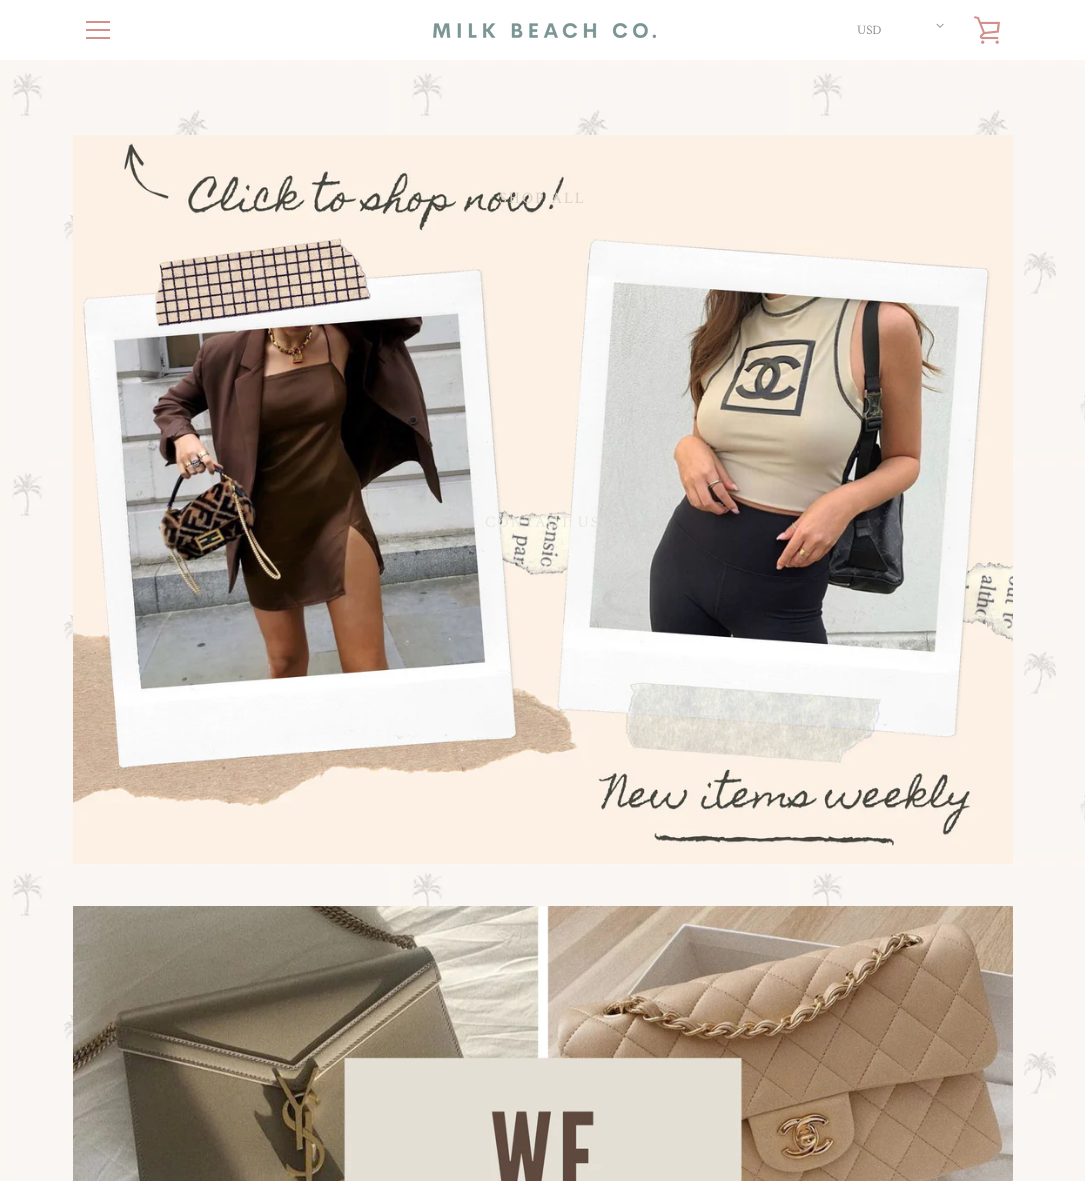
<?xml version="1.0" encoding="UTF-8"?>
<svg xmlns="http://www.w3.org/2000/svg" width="1085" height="1181">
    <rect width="100%" height="100%" fill="#FFFFFF"/>
    <image x="433" y="23" width="223" height="15" href="img_01.png"/>
    <text x="857" y="34" font-family="Crimson Text" font-size="13" fill="#939393">USD</text>
    <image x="936" y="23" width="8" height="5" href="img_02.png"/>
    <image x="974" y="16" width="26" height="28" href="img_03.png"/>
    <rect x="86" y="21" width="24" height="2" fill="#D2908D"/>
    <rect x="86" y="29" width="24" height="2" fill="#D2908D"/>
    <rect x="86" y="37" width="24" height="2" fill="#D2908D"/>
    <image x="0" y="60" width="1085" height="1121" href="img_04.png"/>
    <image x="73" y="135" width="940" height="729" href="img_05.png"/>
    <text x="499" y="203" font-family="Crimson Text" font-size="16" letter-spacing="2" fill="#DBD2C6">SHOP ALL</text>
    <text x="485" y="527" font-family="Crimson Text" font-size="16" letter-spacing="2" fill="#E9E7E0">CONTACT US</text>
    <image x="73" y="906" width="940" height="275" href="img_06.png"/>
</svg>
